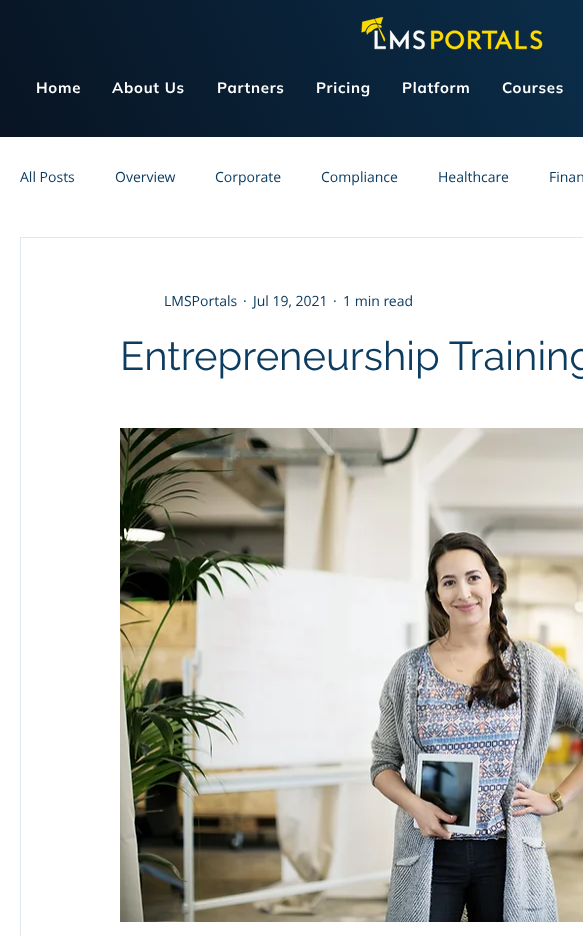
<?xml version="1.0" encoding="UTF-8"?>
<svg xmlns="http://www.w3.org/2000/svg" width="583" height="936">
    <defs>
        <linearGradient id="g1" gradientUnits="userSpaceOnUse" x1="67" y1="275" x2="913" y2="-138"><stop offset="0" stop-color="#081423"/><stop offset="1" stop-color="#0C3C60"/></linearGradient>
    </defs>
    <rect width="100%" height="100%" fill="#FFFFFF"/>
    <rect x="0" y="0" width="583" height="137" fill="url(#g1)"/>
    <image x="361" y="17" width="182" height="33" href="img_01.png"/>
    <text x="36" y="93" font-family="Mulish" font-size="15" font-weight="700" letter-spacing="0.75" fill="#FFFFFF">Home</text>
    <text x="112" y="93" font-family="Mulish" font-size="15" font-weight="700" letter-spacing="0.75" fill="#FFFFFF">About Us</text>
    <text x="217" y="93" font-family="Mulish" font-size="15" font-weight="700" letter-spacing="0.75" fill="#FFFFFF">Partners</text>
    <text x="316" y="93" font-family="Mulish" font-size="15" font-weight="700" letter-spacing="0.75" fill="#FFFFFF">Pricing</text>
    <text x="402" y="93" font-family="Mulish" font-size="15" font-weight="700" letter-spacing="0.75" fill="#FFFFFF">Platform</text>
    <text x="502" y="93" font-family="Mulish" font-size="15" font-weight="700" letter-spacing="0.75" fill="#FFFFFF">Courses</text>
    <text x="20" y="182" font-family="Open Sans" font-size="14" fill="#0C3C60">All Posts</text>
    <text x="115" y="182" font-family="Open Sans" font-size="14" fill="#0C3C60">Overview</text>
    <text x="215" y="182" font-family="Open Sans" font-size="14" fill="#0C3C60">Corporate</text>
    <text x="321" y="182" font-family="Open Sans" font-size="14" fill="#0C3C60">Compliance</text>
    <text x="438" y="182" font-family="Open Sans" font-size="14" fill="#0C3C60">Healthcare</text>
    <text x="549" y="182" font-family="Open Sans" font-size="14" fill="#0C3C60">Finan</text>
    <rect x="20.5" y="237.5" width="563" height="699" fill="none" stroke="#DDE8F0"/>
    <text x="164" y="306" font-family="Open Sans" font-size="14" fill="#0C3C60">LMSPortals</text>
    <text x="243" y="306" font-family="Open Sans" font-size="14" fill="#0C3C60">·</text>
    <text x="253" y="306" font-family="Open Sans" font-size="14" fill="#0C3C60">Jul 19, 2021</text>
    <text x="333" y="306" font-family="Open Sans" font-size="14" fill="#0C3C60">·</text>
    <text x="343" y="306" font-family="Open Sans" font-size="14" fill="#0C3C60">1 min read</text>
    <text x="120" y="370" font-family="Raleway" font-size="40" fill="#0C3C60">Entrepreneurship Training</text>
    <image x="120" y="428" width="463" height="494" href="img_02.png"/>
</svg>
